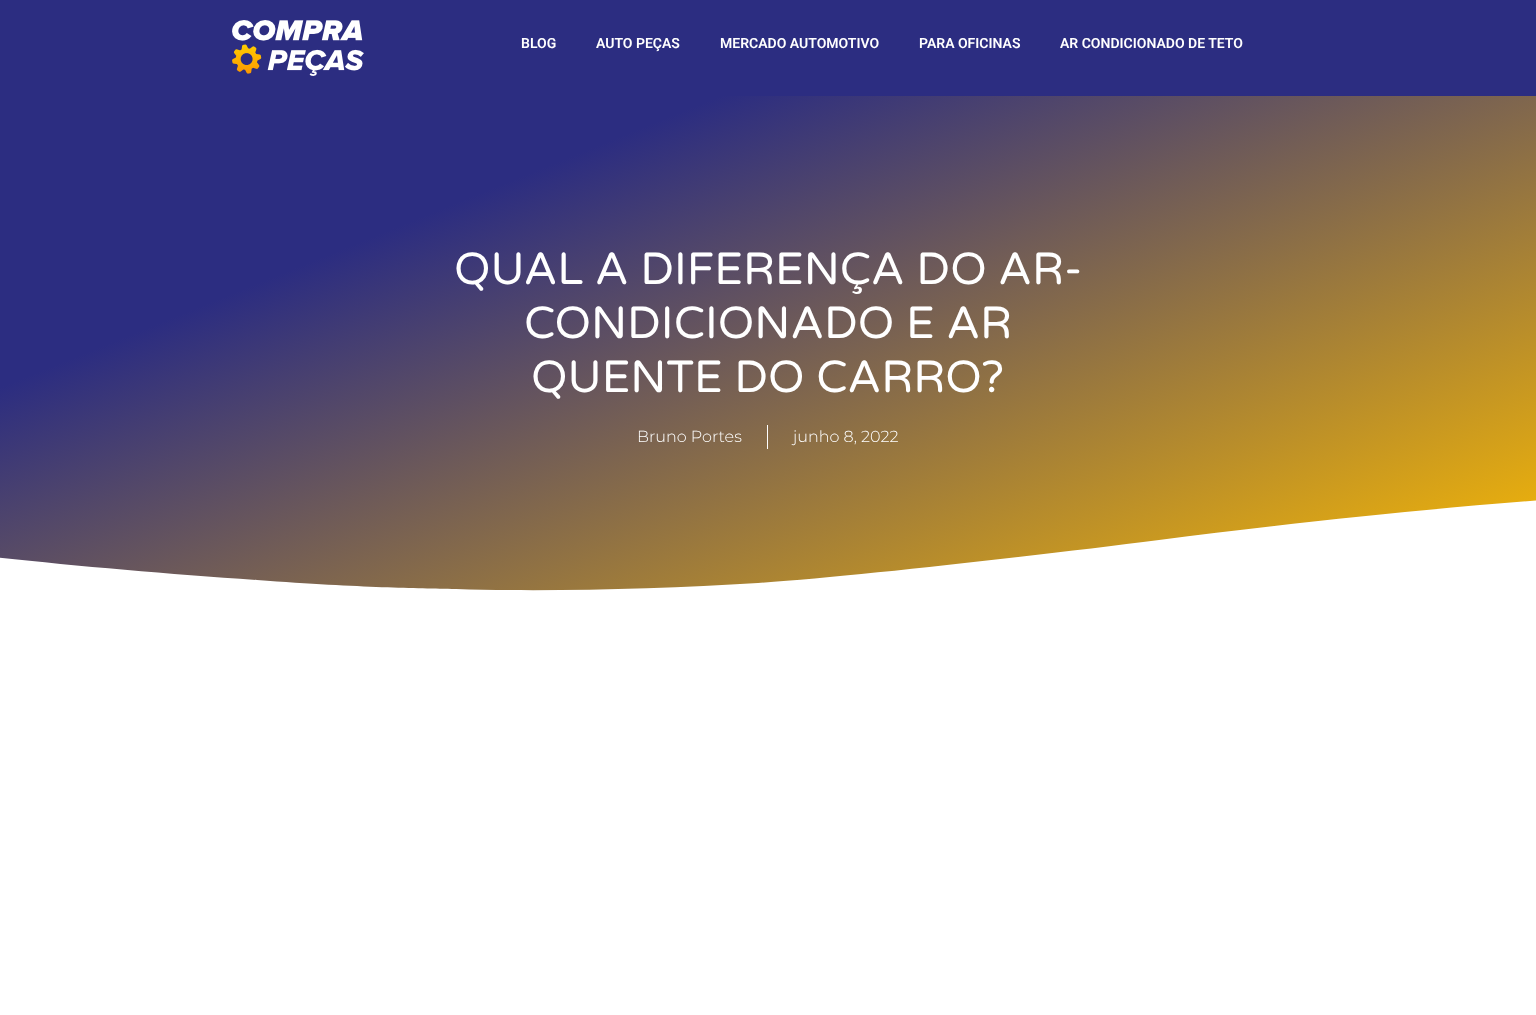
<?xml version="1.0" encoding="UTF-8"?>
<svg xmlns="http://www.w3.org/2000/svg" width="1536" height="1015">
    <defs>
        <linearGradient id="g1" gradientUnits="userSpaceOnUse" x1="573" y1="-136" x2="963" y2="828"><stop offset="0.26" stop-color="#2C2D81"/><stop offset="1" stop-color="#FEBD00"/></linearGradient>
    </defs>
    <rect width="100%" height="100%" fill="#FFFFFF"/>
    <rect x="0" y="0" width="1536" height="96" fill="#2C2D81"/>
    <image x="232" y="20" width="132" height="56" href="img_01.png"/>
    <text x="521" y="48" font-family="Roboto" font-size="14" font-weight="600" fill="#FFFFFF">BLOG</text>
    <text x="596" y="48" font-family="Roboto" font-size="14" font-weight="600" fill="#FFFFFF">AUTO PEÇAS</text>
    <text x="720" y="48" font-family="Roboto" font-size="14" font-weight="600" fill="#FFFFFF">MERCADO AUTOMOTIVO</text>
    <text x="919" y="48" font-family="Roboto" font-size="14" font-weight="600" fill="#FFFFFF">PARA OFICINAS</text>
    <text x="1060" y="48" font-family="Roboto" font-size="14" font-weight="600" fill="#FFFFFF">AR CONDICIONADO DE TETO</text>
    <rect x="0" y="96" width="1536" height="495" fill="url(#g1)"/>
    <text x="454" y="284" font-family="Varela Round" font-size="45" fill="#FFFFFF">QUAL A DIFERENÇA DO AR-</text>
    <text x="524" y="338" font-family="Varela Round" font-size="45" fill="#FFFFFF">CONDICIONADO E AR</text>
    <text x="531" y="392" font-family="Varela Round" font-size="45" fill="#FFFFFF">QUENTE DO CARRO?</text>
    <text x="637" y="442" font-family="Montserrat" font-size="16" font-weight="300" fill="#FFFFFF">Bruno Portes</text>
    <rect x="767" y="425" width="1" height="24" fill="#FFFFFF"/>
    <text x="793" y="442" font-family="Montserrat" font-size="16" font-weight="300" fill="#FFFFFF">junho 8, 2022</text>
    <path d="M 456 589 C 546 592 662 589 758 583 C 852 577 1041 555 1159 540 C 1462 501 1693 487 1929 480 C 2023 478 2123 476 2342 483 C 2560 491 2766 514 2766 514 V 597 H -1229 V 561 C -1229 561 -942 522 -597 524 C -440 525 -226 532 -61 551 C 23 561 147 573 257 580 C 366 588 415 588 456 589 Z" fill="#FFFFFF"/>
</svg>
